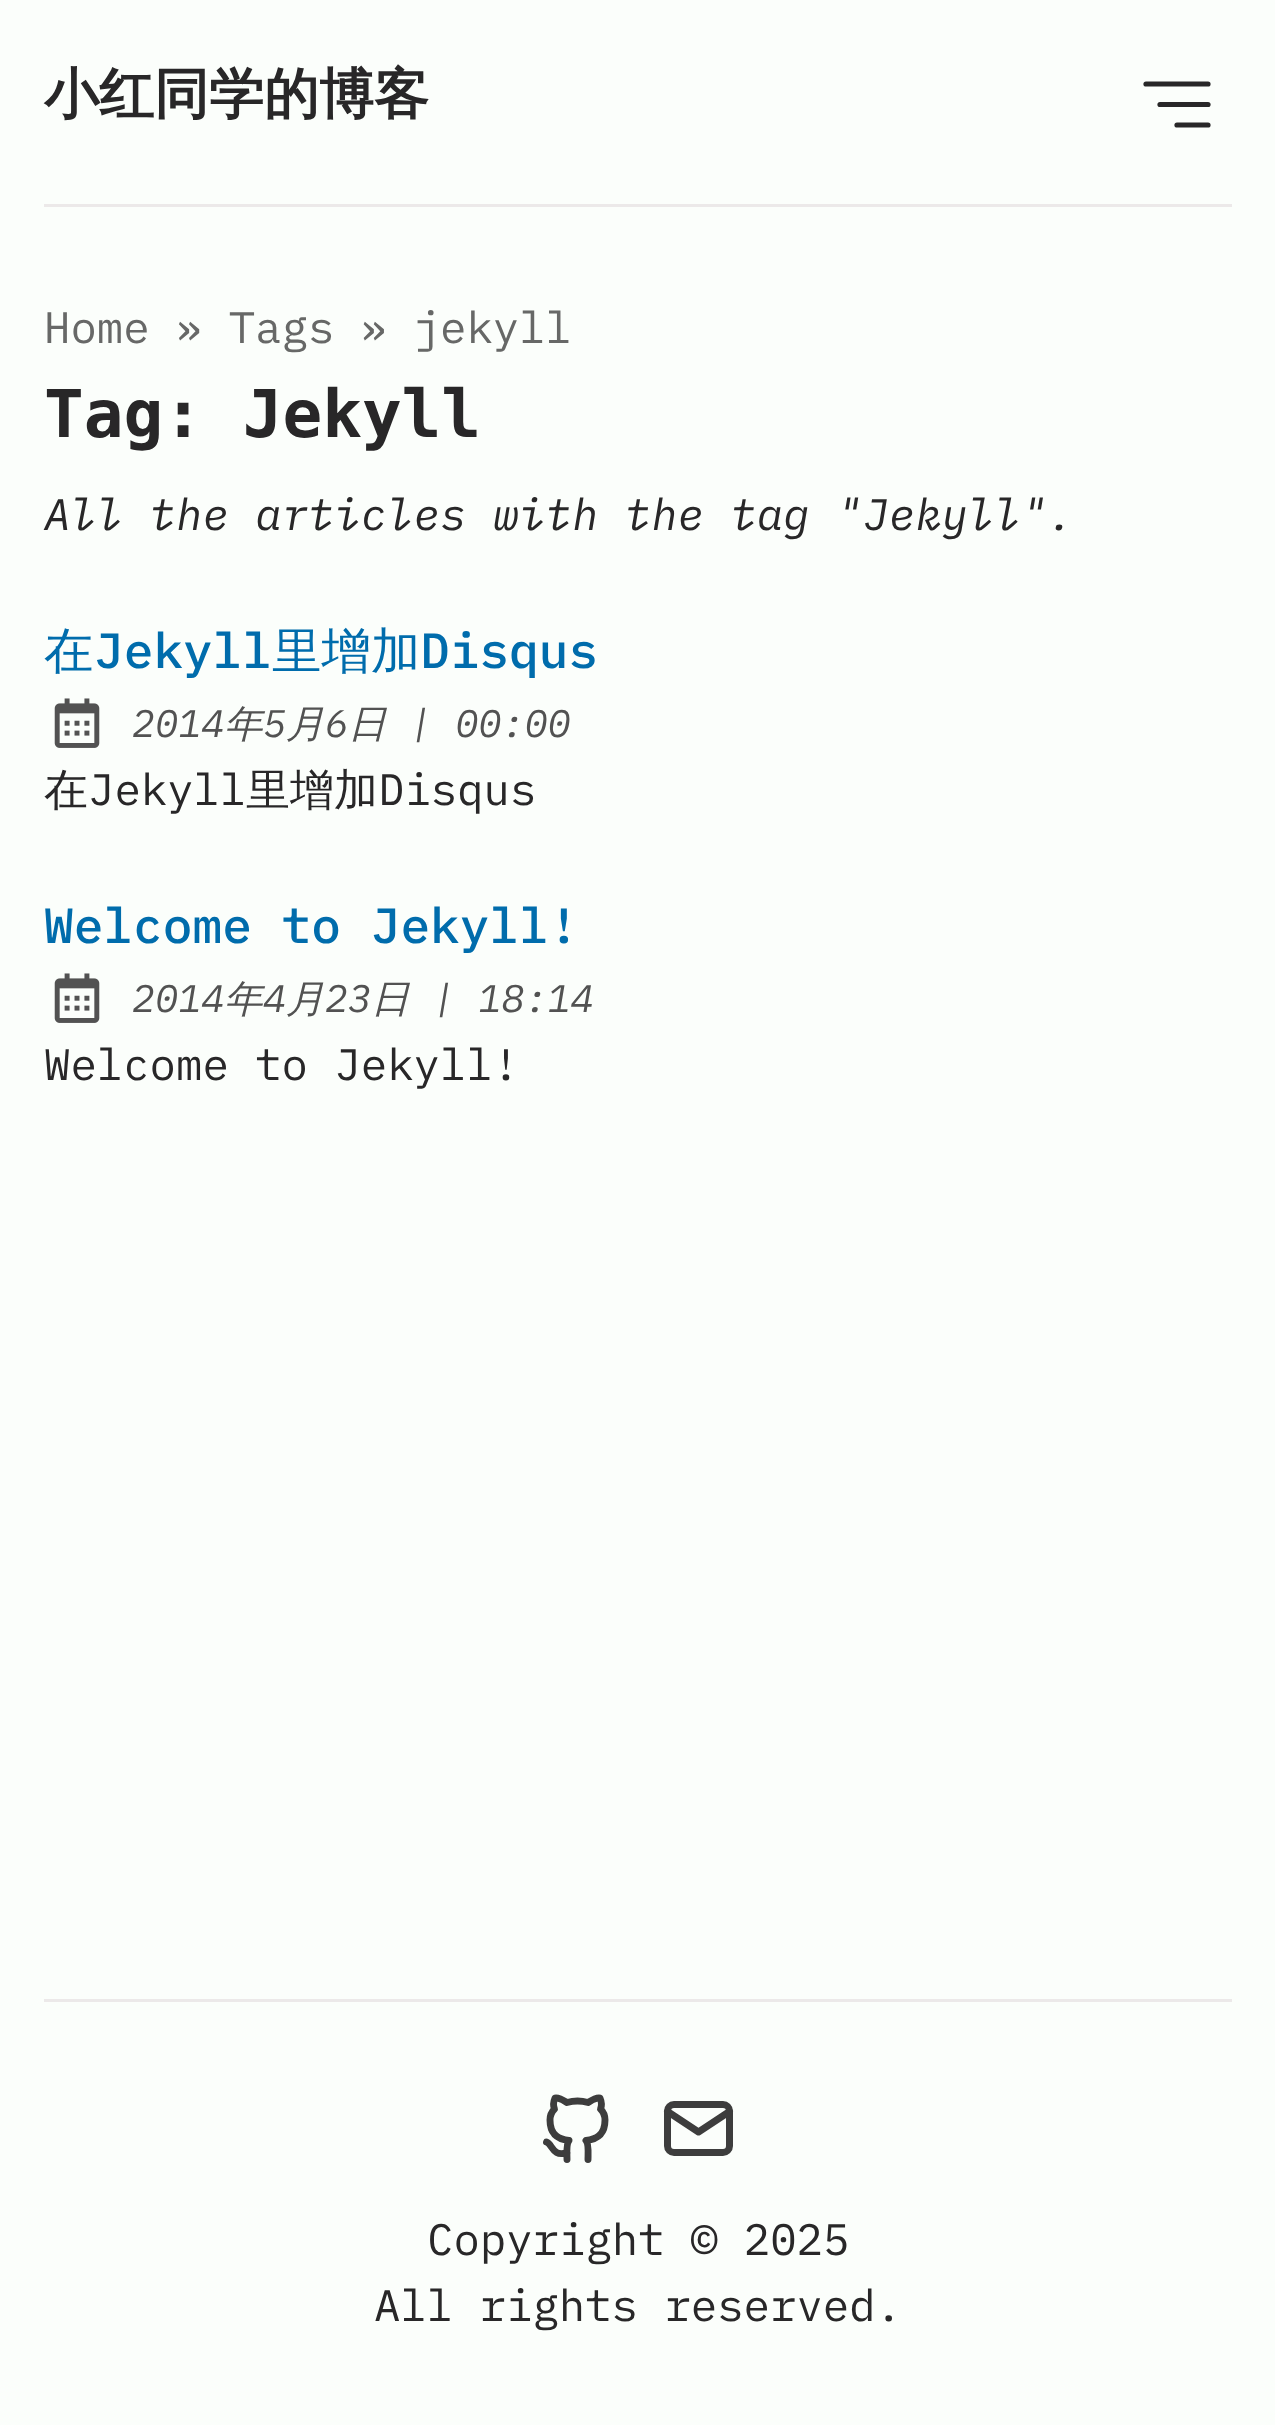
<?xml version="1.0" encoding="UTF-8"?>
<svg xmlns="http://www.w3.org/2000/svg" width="1275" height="2425">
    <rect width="100%" height="100%" fill="#FBFEFB"/>
    <text x="44" y="113" font-family="WenQuanYi Zen Hei" font-size="55" font-weight="700" fill="#282728">小红同学的博客</text>
    <path d="M 1160 104.5 H 1208" fill="none" stroke="#282728" stroke-width="5.2" stroke-linecap="round" stroke-linejoin="round"/>
    <path d="M 1146 84 H 1208" fill="none" stroke="#282728" stroke-width="5.2" stroke-linecap="round" stroke-linejoin="round"/>
    <path d="M 1177 125 H 1208" fill="none" stroke="#282728" stroke-width="5.2" stroke-linecap="round" stroke-linejoin="round"/>
    <rect x="44" y="204" width="1188" height="3" fill="#ECE9E9"/>
    <text x="44" y="343" font-family="IBM Plex Mono" font-size="44" fill="#676867">Home » Tags » jekyll</text>
    <text x="44" y="437" font-family="DejaVu Sans Mono" font-size="66" font-weight="700" fill="#282728">Tag: Jekyll</text>
    <text x="44" y="530" font-family="IBM Plex Mono" font-size="44" font-style="italic" fill="#282728">All the articles with the tag "Jekyll".</text>
    <text x="44" y="668" font-family="WenQuanYi Zen Hei" font-size="49.5" font-weight="500" fill="#006CAC">在</text>
    <text x="94" y="668" font-family="IBM Plex Mono" font-size="49.5" font-weight="500" fill="#006CAC">Jekyll</text>
    <text x="272" y="668" font-family="WenQuanYi Zen Hei" font-size="49.5" font-weight="500" fill="#006CAC">里增加</text>
    <text x="420" y="668" font-family="IBM Plex Mono" font-size="49.5" font-weight="500" fill="#006CAC">Disqus</text>
    <image x="54" y="698" width="46" height="50" href="img_01.png"/>
    <text x="132" y="737" font-family="IBM Plex Mono" font-size="38.5" font-style="italic" fill="#525252">2014</text>
    <text x="224" y="737" font-family="WenQuanYi Zen Hei" font-size="38.5" font-weight="500" font-style="italic" fill="#525252">年</text>
    <text x="263" y="737" font-family="IBM Plex Mono" font-size="38.5" font-style="italic" fill="#525252">5</text>
    <text x="286" y="737" font-family="WenQuanYi Zen Hei" font-size="38.5" font-weight="500" font-style="italic" fill="#525252">月</text>
    <text x="325" y="737" font-family="IBM Plex Mono" font-size="38.5" font-style="italic" fill="#525252">6</text>
    <text x="348" y="737" font-family="WenQuanYi Zen Hei" font-size="38.5" font-weight="500" font-style="italic" fill="#525252">日</text>
    <text x="409" y="737" font-family="IBM Plex Mono" font-size="38.5" font-style="italic" fill="#525252">| 00:00</text>
    <text x="44" y="805" font-family="WenQuanYi Zen Hei" font-size="44" font-weight="500" fill="#282728">在</text>
    <text x="88" y="805" font-family="IBM Plex Mono" font-size="44" fill="#282728">Jekyll</text>
    <text x="246" y="805" font-family="WenQuanYi Zen Hei" font-size="44" font-weight="500" fill="#282728">里增加</text>
    <text x="378" y="805" font-family="IBM Plex Mono" font-size="44" fill="#282728">Disqus</text>
    <text x="44" y="943" font-family="IBM Plex Mono" font-size="49.5" font-weight="500" fill="#006CAC">Welcome to Jekyll!</text>
    <image x="54" y="973" width="46" height="50" href="img_01.png"/>
    <text x="132" y="1012" font-family="IBM Plex Mono" font-size="38.5" font-style="italic" fill="#525252">2014</text>
    <text x="224" y="1012" font-family="WenQuanYi Zen Hei" font-size="38.5" font-weight="500" font-style="italic" fill="#525252">年</text>
    <text x="263" y="1012" font-family="IBM Plex Mono" font-size="38.5" font-style="italic" fill="#525252">4</text>
    <text x="286" y="1012" font-family="WenQuanYi Zen Hei" font-size="38.5" font-weight="500" font-style="italic" fill="#525252">月</text>
    <text x="325" y="1012" font-family="IBM Plex Mono" font-size="38.5" font-style="italic" fill="#525252">23</text>
    <text x="371" y="1012" font-family="WenQuanYi Zen Hei" font-size="38.5" font-weight="500" font-style="italic" fill="#525252">日</text>
    <text x="432" y="1012" font-family="IBM Plex Mono" font-size="38.5" font-style="italic" fill="#525252">| 18:14</text>
    <text x="44" y="1080" font-family="IBM Plex Mono" font-size="44" fill="#282728">Welcome to Jekyll!</text>
    <rect x="44" y="1999" width="1188" height="3" fill="#ECE9E9"/>
    <path d="M 567 2152.5 C 552.5 2157.5 552.5 2144 546.5 2142 M 588 2159.5 C 588 2155 589 2143.5 586 2140.5 C 595.5 2139.5 605 2135.5 605 2120 C 605 2116 603.5 2112 600.5 2109 C 602 2105.5 601.5 2101.5 600 2098 C 600 2098 596.5 2097 588 2102.5 C 581 2100.5 574 2100.5 567 2102.5 C 558.5 2097 555 2098 555 2098 C 553.5 2101.5 553 2105.5 554.5 2109 C 551.5 2112 550 2116 550 2120 C 550 2135.5 559.5 2139.5 569 2140.5 C 566 2143.5 567 2155 567 2159.5" fill="none" stroke="#3D3D3D" stroke-width="6.9" stroke-linecap="round" stroke-linejoin="round"/>
    <rect x="667.5" y="2104.5" width="62" height="48" rx="6.5" fill="none" stroke="#3D3D3D" stroke-width="7"/>
    <path d="M 667.5 2111.5 L 698.5 2132 L 729.5 2111.5" fill="none" stroke="#3D3D3D" stroke-width="6.9" stroke-linecap="round" stroke-linejoin="round"/>
    <text x="427" y="2255" font-family="IBM Plex Mono" font-size="44" fill="#282728">Copyright © 2025</text>
    <text x="374" y="2321" font-family="IBM Plex Mono" font-size="44" fill="#282728">All rights reserved.</text>
</svg>
